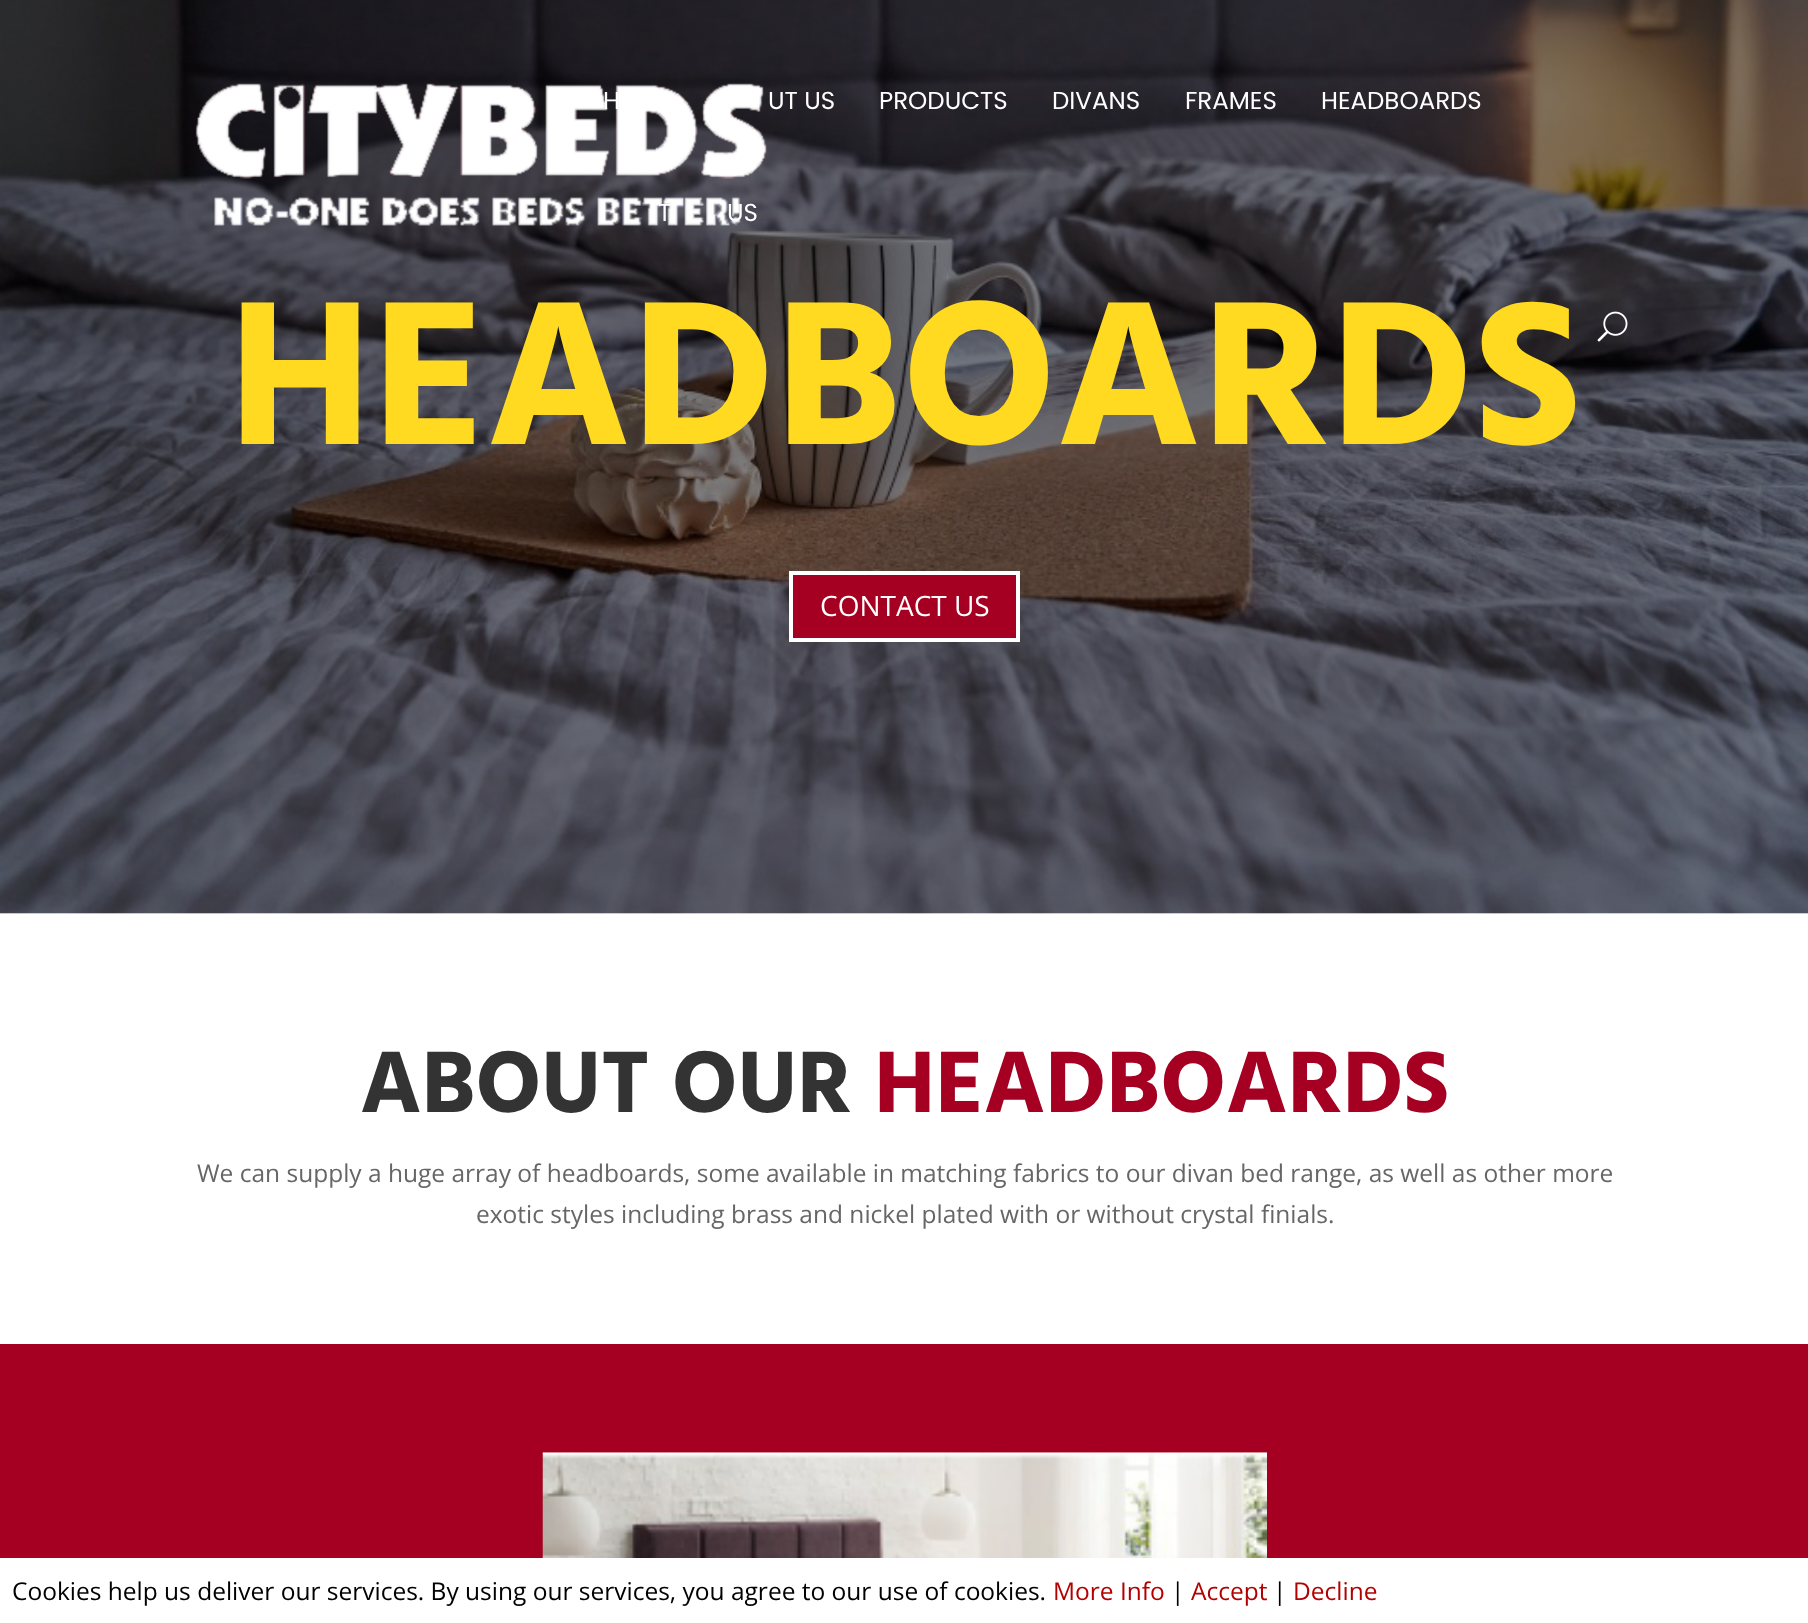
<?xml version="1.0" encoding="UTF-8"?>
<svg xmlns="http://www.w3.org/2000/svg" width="1808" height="1623">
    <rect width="100%" height="100%" fill="#FFFFFF"/>
    <image x="0" y="0" width="1808" height="914" href="img_03.png"/>
    <image x="195" y="83" width="572" height="143" href="img_01.png"/>
    <text x="603" y="109" font-family="Poppins" font-size="24.5" fill="#FFFFFF">H</text>
    <text x="768" y="109" font-family="Poppins" font-size="24.5" fill="#FFFFFF">UT US</text>
    <text x="879" y="109" font-family="Poppins" font-size="24.5" fill="#FFFFFF">PRODUCTS</text>
    <text x="1052" y="109" font-family="Poppins" font-size="24.5" fill="#FFFFFF">DIVANS</text>
    <text x="1185" y="109" font-family="Poppins" font-size="24.5" fill="#FFFFFF">FRAMES</text>
    <text x="1321" y="109" font-family="Poppins" font-size="24.5" fill="#FFFFFF">HEADBOARDS</text>
    <text x="658" y="221" font-family="Poppins" font-size="24.5" fill="#FFFFFF">T</text>
    <text x="727" y="221" font-family="Poppins" font-size="24.5" fill="#FFFFFF">US</text>
    <image x="1597" y="311" width="31" height="31" href="img_02.png"/>
    <text x="228" y="444" font-family="Hind" font-size="210" font-weight="700" fill="#FFDA20">HEADBOARDS</text>
    <rect x="791" y="573" width="227" height="67" fill="#A50021" stroke="#FFFFFF" stroke-width="4"/>
    <text x="820" y="616" font-family="Open Sans" font-size="28" fill="#FFFFFF">CONTACT US</text>
    <text x="360" y="1112" font-family="Hind" font-size="89.25" font-weight="700" fill="#333333">ABOUT OUR</text>
    <text x="874" y="1112" font-family="Hind" font-size="89.25" font-weight="700" fill="#A50021">HEADBOARDS</text>
    <text x="197" y="1182" font-family="Open Sans" font-size="24.5" fill="#666666">We can supply a huge array of headboards, some available in matching fabrics to our divan bed range, as well as other more</text>
    <text x="476" y="1223" font-family="Open Sans" font-size="24.5" fill="#666666">exotic styles including brass and nickel plated with or without crystal finials.</text>
    <rect x="0" y="1344" width="1808" height="214" fill="#A50021"/>
    <image x="542" y="1452" width="725" height="106" href="img_04.png"/>
    <text x="12" y="1600" font-family="Open Sans" font-size="24.5" fill="#000000">Cookies help us deliver our services. By using our services, you agree to our use of cookies.</text>
    <text x="1053" y="1600" font-family="Open Sans" font-size="24.5" fill="#B30000">More Info</text>
    <text x="1171" y="1600" font-family="Open Sans" font-size="24.5" fill="#000000">|</text>
    <text x="1191" y="1600" font-family="Open Sans" font-size="24.5" fill="#B30000">Accept</text>
    <text x="1273" y="1600" font-family="Open Sans" font-size="24.5" fill="#000000">|</text>
    <text x="1293" y="1600" font-family="Open Sans" font-size="24.5" fill="#B30000">Decline</text>
</svg>
